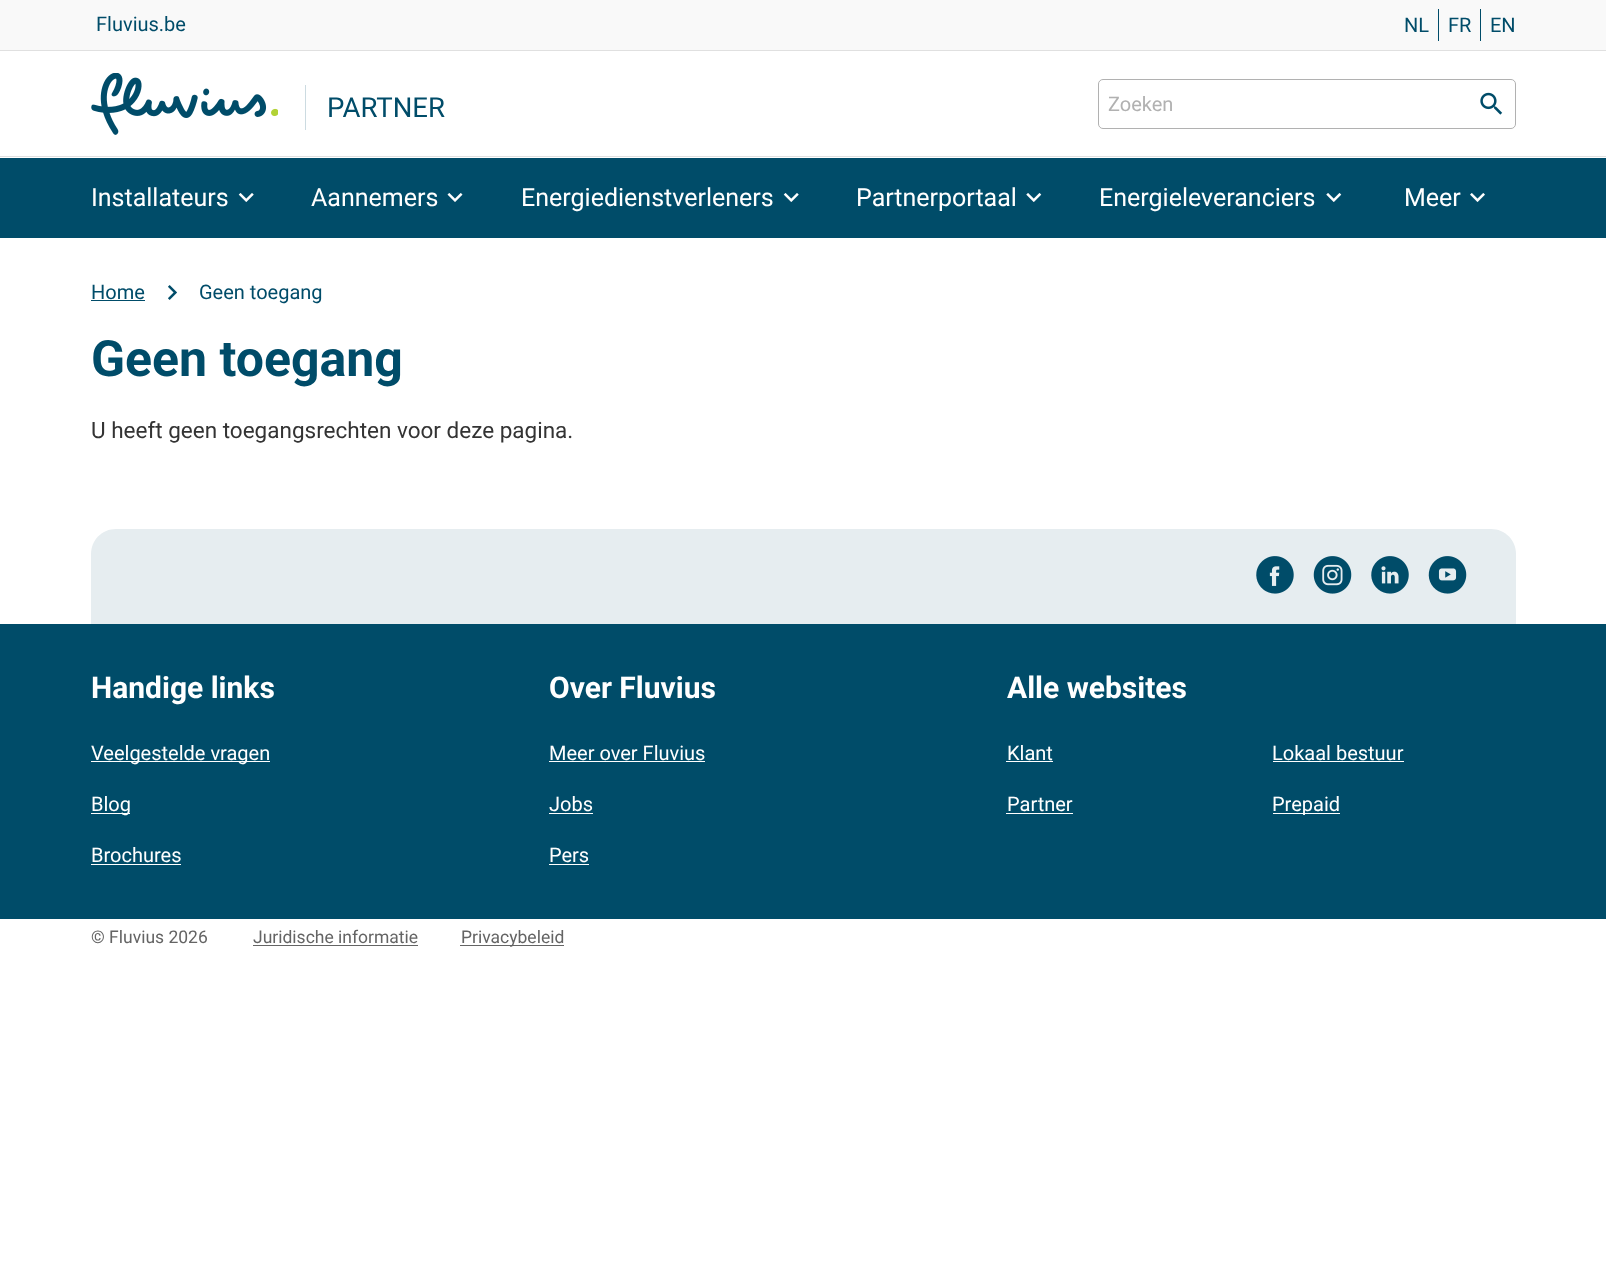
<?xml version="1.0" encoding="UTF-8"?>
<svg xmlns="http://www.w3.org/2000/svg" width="1606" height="1286">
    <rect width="100%" height="100%" fill="#FFFFFF"/>
    <rect x="0" y="0" width="1606" height="50" fill="#F9F9F9"/>
    <rect x="0" y="50" width="1606" height="1" fill="#E0E0E0"/>
    <text x="96" y="31" font-family="Roboto" font-size="20" fill="#004C69">Fluvius.be</text>
    <text x="1404" y="32" font-family="Roboto" font-size="20" fill="#004C69">NL</text>
    <rect x="1438" y="9" width="1" height="32" fill="#004C69"/>
    <text x="1448" y="32" font-family="Roboto" font-size="20" fill="#004C69">FR</text>
    <rect x="1480" y="9" width="1" height="32" fill="#004C69"/>
    <text x="1490" y="32" font-family="Roboto" font-size="20" fill="#004C69">EN</text>
    <rect x="0" y="156" width="1606" height="1" fill="#E0E0E0"/>
    <image x="91" y="73" width="187" height="62" href="img_01.png"/>
    <rect x="305" y="85" width="1" height="45" fill="#CCDBE1"/>
    <text x="327" y="117" font-family="Roboto" font-size="27.5" fill="#004C69">PARTNER</text>
    <image x="1480" y="92" width="23" height="23" href="img_02.png"/>
    <rect x="1098.5" y="79.5" width="417" height="49" rx="4.5" fill="none" stroke="#B1B1B1"/>
    <text x="1108" y="111" font-family="Roboto" font-size="20" fill="#B1B1B1">Zoeken</text>
    <rect x="0" y="158" width="1606" height="80" fill="#004C69"/>
    <image x="238" y="193" width="16" height="9" href="img_03.png"/>
    <text x="91" y="206" font-family="Roboto" font-size="25" fill="#FFFFFF">Installateurs</text>
    <image x="447" y="193" width="16" height="9" href="img_04.png"/>
    <text x="311" y="206" font-family="Roboto" font-size="25" fill="#FFFFFF">Aannemers</text>
    <image x="783" y="193" width="16" height="9" href="img_03.png"/>
    <text x="521" y="206" font-family="Roboto" font-size="25" fill="#FFFFFF">Energiedienstverleners</text>
    <image x="1026" y="193" width="16" height="9" href="img_05.png"/>
    <text x="856" y="206" font-family="Roboto" font-size="25" fill="#FFFFFF">Partnerportaal</text>
    <image x="1326" y="193" width="16" height="9" href="img_05.png"/>
    <text x="1099" y="206" font-family="Roboto" font-size="25" fill="#FFFFFF">Energieleveranciers</text>
    <image x="1470" y="193" width="15" height="9" href="img_06.png"/>
    <text x="1404" y="206" font-family="Roboto" font-size="25" fill="#FFFFFF">Meer</text>
    <text x="91" y="299" font-family="Roboto" font-size="20" fill="#004C69">Home</text>
    <rect x="91" y="300" width="54" height="1" fill="#004C69"/>
    <image x="168" y="285" width="9" height="15" href="img_07.png"/>
    <text x="199" y="299" font-family="Roboto" font-size="20" fill="#004C69">Geen toegang</text>
    <text x="91" y="376" font-family="Roboto" font-size="50" font-weight="700" fill="#004C69">Geen toegang</text>
    <text x="91" y="438" font-family="Roboto" font-size="22.5" fill="#333333">U heeft geen toegangsrechten voor deze pagina.</text>
    <path d="M 116 529 H 1491 C 1505 529 1516 540 1516 554 V 624 H 91 V 554 C 91 540 102 529 116 529 Z" fill="#E6EDF0"/>
    <image x="1256" y="556" width="38" height="38" href="img_08.png"/>
    <image x="1313" y="556" width="39" height="38" href="img_09.png"/>
    <image x="1371" y="556" width="38" height="38" href="img_10.png"/>
    <image x="1428" y="556" width="39" height="38" href="img_11.png"/>
    <rect x="0" y="624" width="1606" height="295" fill="#004C69"/>
    <text x="91" y="698" font-family="Roboto" font-size="30" font-weight="700" fill="#FFFFFF">Handige links</text>
    <rect x="91" y="761" width="179" height="1" fill="#FFFFFF"/>
    <text x="91" y="760" font-family="Roboto" font-size="20" fill="#FFFFFF">Veelgestelde vragen</text>
    <rect x="91" y="813" width="39" height="1" fill="#FFFFFF"/>
    <text x="91" y="811" font-family="Roboto" font-size="20" fill="#FFFFFF">Blog</text>
    <text x="91" y="862" font-family="Roboto" font-size="20" fill="#FFFFFF">Brochures</text>
    <rect x="91" y="864" width="90" height="1" fill="#FFFFFF"/>
    <text x="549" y="698" font-family="Roboto" font-size="30" font-weight="700" fill="#FFFFFF">Over Fluvius</text>
    <text x="549" y="760" font-family="Roboto" font-size="20" fill="#FFFFFF">Meer over Fluvius</text>
    <rect x="549" y="761" width="156" height="1" fill="#FFFFFF"/>
    <text x="549" y="811" font-family="Roboto" font-size="20" fill="#FFFFFF">Jobs</text>
    <rect x="549" y="813" width="44" height="1" fill="#FFFFFF"/>
    <text x="549" y="862" font-family="Roboto" font-size="20" fill="#FFFFFF">Pers</text>
    <rect x="549" y="864" width="40" height="1" fill="#FFFFFF"/>
    <text x="1007" y="698" font-family="Roboto" font-size="30" font-weight="700" fill="#FFFFFF">Alle websites</text>
    <text x="1007" y="760" font-family="Roboto" font-size="20" fill="#FFFFFF">Klant</text>
    <rect x="1006" y="761" width="47" height="1" fill="#FFFFFF"/>
    <text x="1272" y="760" font-family="Roboto" font-size="20" fill="#FFFFFF">Lokaal bestuur</text>
    <rect x="1273" y="761" width="131" height="1" fill="#FFFFFF"/>
    <text x="1007" y="811" font-family="Roboto" font-size="20" fill="#FFFFFF">Partner</text>
    <rect x="1006" y="813" width="67" height="1" fill="#FFFFFF"/>
    <rect x="1273" y="813" width="67" height="1" fill="#FFFFFF"/>
    <text x="1272" y="811" font-family="Roboto" font-size="20" fill="#FFFFFF">Prepaid</text>
    <text x="91" y="943" font-family="Roboto" font-size="17.5" fill="#646464">© Fluvius 2026</text>
    <text x="253" y="943" font-family="Roboto" font-size="17.5" fill="#646464">Juridische informatie</text>
    <rect x="253" y="945" width="165" height="1" fill="#646464"/>
    <rect x="460" y="945" width="104" height="1" fill="#646464"/>
    <text x="461" y="943" font-family="Roboto" font-size="17.5" fill="#646464">Privacybeleid</text>
</svg>
